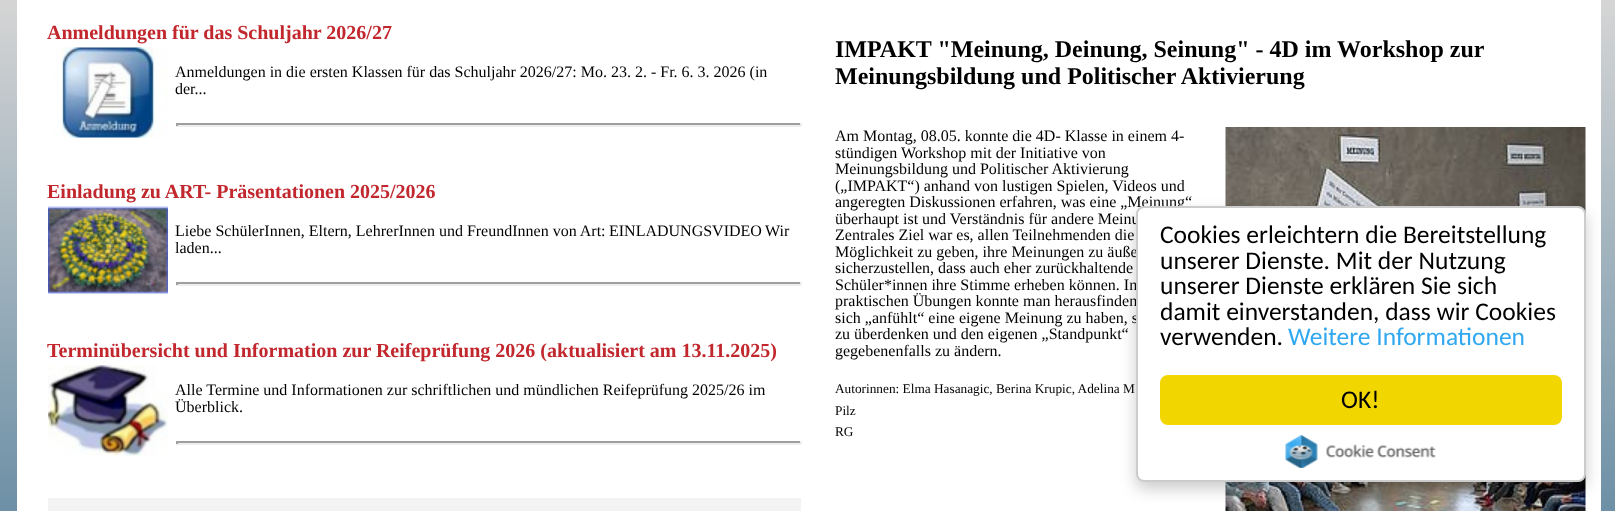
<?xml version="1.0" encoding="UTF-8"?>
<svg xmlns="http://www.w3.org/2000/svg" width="1615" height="511">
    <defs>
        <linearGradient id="g1" gradientUnits="userSpaceOnUse" x1="808" y1="0" x2="808" y2="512"><stop offset="0" stop-color="#D5D5D5"/><stop offset="1" stop-color="#6D90A6"/></linearGradient>
        <filter id="blur1" x="-50%" y="-200%" width="200%" height="500%"><feGaussianBlur stdDeviation="7.5"/></filter>
    </defs>
    <rect width="100%" height="100%" fill="#FFFFFF"/>
    <rect x="0" y="0" width="1615" height="511" fill="url(#g1)"/>
    <rect x="17" y="0" width="1584" height="2" fill="#FFFFFF"/>
    <rect x="17" y="2" width="1584" height="509" fill="#FFFFFF"/>
    <text x="47" y="39" font-family="Liberation Serif" font-size="20" font-weight="700" fill="#C1272D">Anmeldungen für das Schuljahr 2026/27</text>
    <image x="54" y="47" width="114" height="91" href="img_01.png"/>
    <text font-family="Liberation Serif" font-size="16" fill="#000000">
        <tspan x="175" y="77">Anmeldungen in die ersten Klassen für das Schuljahr 2026/27: Mo. 23. 2. - Fr. 6. 3. 2026 (in</tspan>
        <tspan x="175" y="94">der...</tspan>
    </text>
    <rect x="176" y="123" width="625" height="2" fill="#9F9F9F"/>
    <rect x="800" y="123" width="2" height="3" fill="#EEEEEE"/>
    <rect x="176" y="125" width="625" height="2" fill="#EEEEEE"/>
    <rect x="176" y="123" width="2" height="3" fill="#9F9F9F"/>
    <text x="47" y="198" font-family="Liberation Serif" font-size="20" font-weight="700" fill="#C1272D">Einladung zu ART- Präsentationen 2025/2026</text>
    <image x="48" y="206" width="120" height="88" href="img_02.png"/>
    <text x="175" y="236" font-family="Liberation Serif" font-size="16" fill="#000000">Liebe SchülerInnen, Eltern, LehrerInnen und FreundInnen von Art:</text>
    <text x="609" y="236" font-family="Liberation Serif" font-size="16" fill="#000000">EINLADUNGSVIDEO</text>
    <text x="765" y="236" font-family="Liberation Serif" font-size="16" fill="#000000">Wir</text>
    <text x="175" y="253" font-family="Liberation Serif" font-size="16" fill="#000000">laden...</text>
    <rect x="176" y="282" width="625" height="2" fill="#9F9F9F"/>
    <rect x="800" y="282" width="2" height="3" fill="#EEEEEE"/>
    <rect x="176" y="284" width="625" height="2" fill="#EEEEEE"/>
    <rect x="176" y="282" width="2" height="3" fill="#9F9F9F"/>
    <text x="47" y="357" font-family="Liberation Serif" font-size="20" font-weight="700" fill="#C1272D">Terminübersicht und Information zur Reifeprüfung 2026 (aktualisiert am 13.11.2025)</text>
    <image x="48" y="365" width="120" height="91" href="img_03.png"/>
    <text font-family="Liberation Serif" font-size="16" fill="#000000">
        <tspan x="175" y="395">Alle Termine und Informationen zur schriftlichen und mündlichen Reifeprüfung 2025/26 im</tspan>
        <tspan x="175" y="412">Überblick.</tspan>
    </text>
    <rect x="176" y="441" width="625" height="2" fill="#9F9F9F"/>
    <rect x="800" y="441" width="2" height="3" fill="#EEEEEE"/>
    <rect x="176" y="443" width="625" height="2" fill="#EEEEEE"/>
    <rect x="176" y="441" width="2" height="3" fill="#9F9F9F"/>
    <rect x="48" y="498" width="753" height="13" fill="#F3F3F3"/>
    <text font-family="Liberation Serif" font-size="24" font-weight="700" fill="#000000">
        <tspan x="835" y="57">IMPAKT "Meinung, Deinung, Seinung" - 4D im Workshop zur</tspan>
        <tspan x="835" y="84">Meinungsbildung und Politischer Aktivierung</tspan>
    </text>
    <text font-family="Liberation Serif" font-size="16" fill="#000000">
        <tspan x="835" y="141">Am Montag, 08.05. konnte die 4D- Klasse in einem 4-</tspan>
        <tspan x="835" y="158">stündigen Workshop mit der Initiative von</tspan>
        <tspan x="835" y="174">Meinungsbildung und Politischer Aktivierung</tspan>
        <tspan x="835" y="191">(„IMPAKT“) anhand von lustigen Spielen, Videos und</tspan>
        <tspan x="835" y="207">angeregten Diskussionen erfahren, was eine „Meinung“</tspan>
        <tspan x="835" y="224">überhaupt ist und Verständnis für andere Meinu</tspan>
        <tspan x="835" y="240">Zentrales Ziel war es, allen Teilnehmenden die</tspan>
        <tspan x="835" y="257">Möglichkeit zu geben, ihre Meinungen zu äuße</tspan>
        <tspan x="835" y="273">sicherzustellen, dass auch eher zurückhaltende</tspan>
        <tspan x="835" y="290">Schüler*innen ihre Stimme erheben können. In</tspan>
        <tspan x="835" y="306">praktischen Übungen konnte man herausfinden</tspan>
        <tspan x="835" y="323">sich „anfühlt“ eine eigene Meinung zu haben, s</tspan>
        <tspan x="835" y="339">zu überdenken und den eigenen „Standpunkt“</tspan>
        <tspan x="835" y="356">gegebenenfalls zu ändern.</tspan>
    </text>
    <text font-family="Liberation Serif" font-size="13.3" fill="#000000">
        <tspan x="835" y="393">Autorinnen: Elma Hasanagic, Berina Krupic, Adelina M</tspan>
        <tspan x="835" y="415">Pilz</tspan>
        <tspan x="835" y="436">RG</tspan>
    </text>
    <image x="1225" y="127" width="361" height="87" href="img_04.png"/>
    <image x="1225" y="474" width="361" height="37" href="img_05.png"/>
    <rect x="1136" y="213" width="450" height="276" rx="8" fill="#000000" fill-opacity="0.2" filter="url(#blur1)"/>
    <rect x="1137" y="207" width="448" height="274" rx="7" fill="#FFFFFF" stroke="#CCCCCC" stroke-width="2"/>
    <text font-family="Carlito" font-size="25.5" fill="#000000">
        <tspan x="1160" y="243">Cookies erleichtern die Bereitstellung</tspan>
        <tspan x="1160" y="269">unserer Dienste. Mit der Nutzung</tspan>
        <tspan x="1160" y="294">unserer Dienste erklären Sie sich</tspan>
        <tspan x="1160" y="320">damit einverstanden, dass wir Cookies</tspan>
        <tspan x="1160" y="345">verwenden.</tspan>
    </text>
    <text x="1288" y="345" font-family="Carlito" font-size="25.5" fill="#31A8F0">Weitere Informationen</text>
    <rect x="1160" y="375" width="402" height="50" rx="8" fill="#F1D600"/>
    <text x="1341" y="408" font-family="Carlito" font-size="25.5" fill="#000000">OK!</text>
    <image x="1285" y="435" width="151" height="33" href="img_06.png"/>
</svg>
